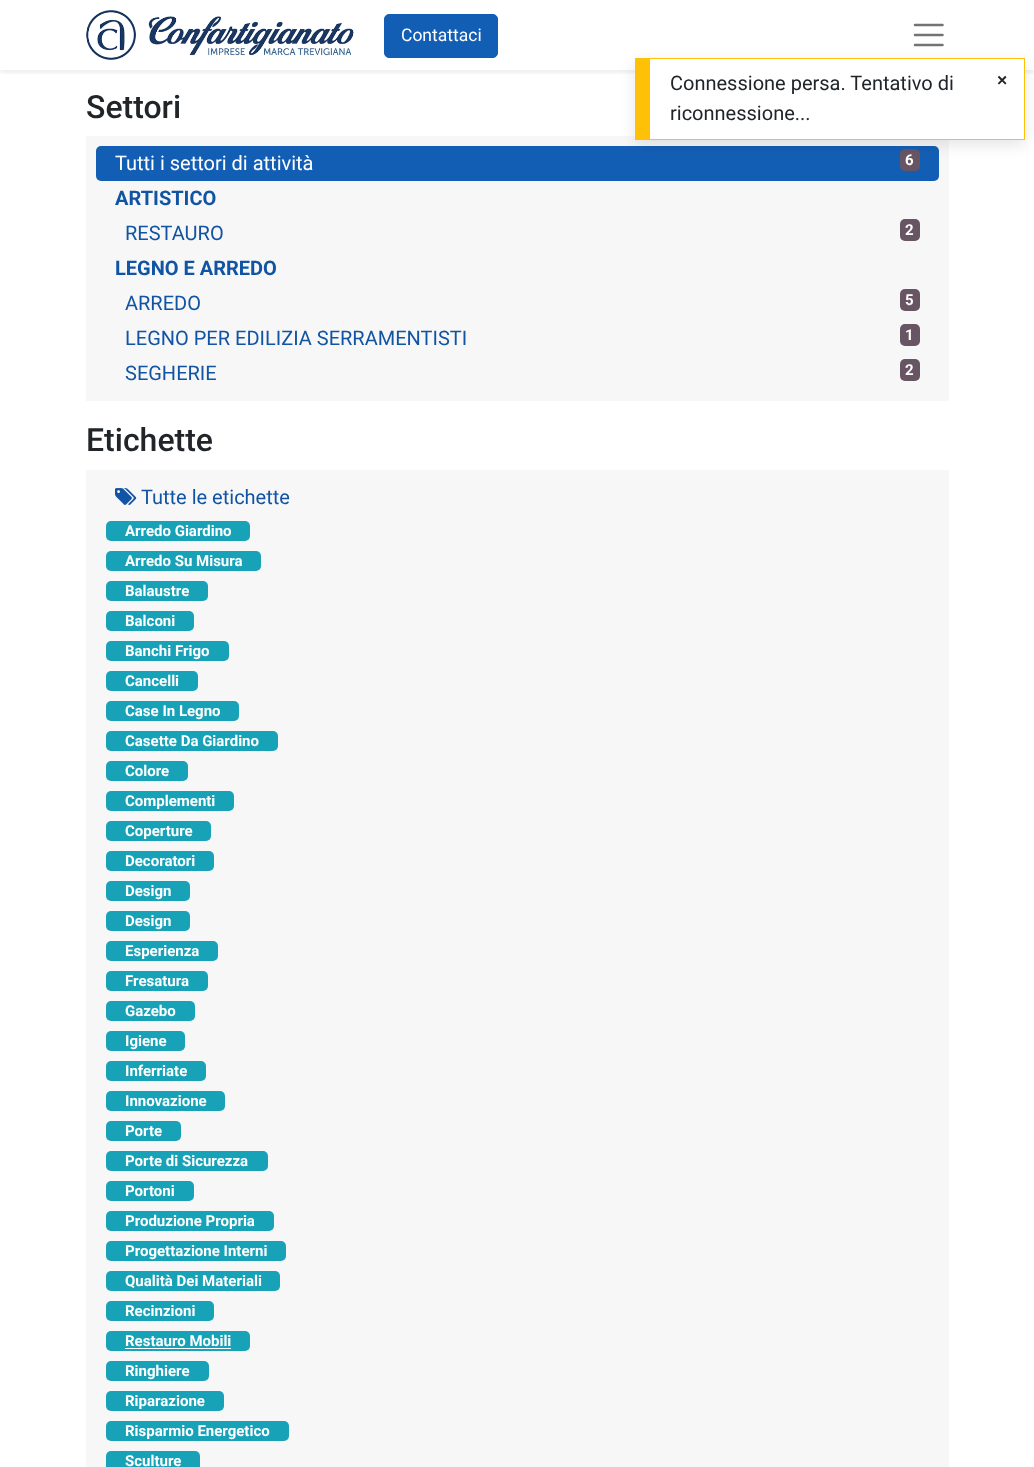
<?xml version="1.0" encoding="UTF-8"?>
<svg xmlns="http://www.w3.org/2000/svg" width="1034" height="1467">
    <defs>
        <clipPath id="clip1"><rect x="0" y="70" width="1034" height="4"/></clipPath>
        <filter id="blur1" x="-50%" y="-200%" width="200%" height="500%"><feGaussianBlur stdDeviation="2.5"/></filter>
        <filter id="blur2" x="-50%" y="-200%" width="200%" height="500%"><feGaussianBlur stdDeviation="7.5"/></filter>
    </defs>
    <rect width="100%" height="100%" fill="#FFFFFF"/>
    <g clip-path="url(#clip1)">
        <rect x="0" y="3" width="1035" height="70" fill="#000000" fill-opacity="0.07" filter="url(#blur1)"/>
    </g>
    <image x="86" y="10" width="268" height="50" href="img_01.png"/>
    <rect x="384.5" y="14.5" width="113" height="43" rx="4.5" fill="#135EB5" stroke="#135EB5"/>
    <text x="401" y="41" font-family="Roboto" font-size="17.5" fill="#FFFFFF">Contattaci</text>
    <path d="M 915 25 H 942.5 M 915 35 H 942.5 M 915 45 H 942.5" fill="none" stroke="#737373" stroke-width="2.5" stroke-linecap="round"/>
    <text x="86" y="118" font-family="Roboto" font-size="32" font-weight="500" fill="#212529">Settori</text>
    <rect x="86" y="136" width="863" height="265" fill="#F7F7F7"/>
    <rect x="96" y="146" width="843" height="35" rx="5" fill="#135EB5"/>
    <text x="115" y="170" font-family="Roboto" font-size="20" fill="#FFFFFF">Tutti i settori di attività</text>
    <rect x="900" y="149" width="20" height="22" rx="5" fill="#685563"/>
    <text x="905" y="165" font-family="Roboto" font-size="15" font-weight="700" fill="#FFFFFF">6</text>
    <text x="115" y="205" font-family="Roboto" font-size="20" font-weight="700" fill="#1154A3">ARTISTICO</text>
    <text x="125" y="240" font-family="Roboto" font-size="20" fill="#1154A3">RESTAURO</text>
    <rect x="900" y="219" width="20" height="22" rx="5" fill="#685563"/>
    <text x="905" y="235" font-family="Roboto" font-size="15" font-weight="700" fill="#FFFFFF">2</text>
    <text x="115" y="275" font-family="Roboto" font-size="20" font-weight="700" fill="#1154A3">LEGNO E ARREDO</text>
    <text x="125" y="310" font-family="Roboto" font-size="20" fill="#1154A3">ARREDO</text>
    <rect x="900" y="289" width="20" height="22" rx="5" fill="#685563"/>
    <text x="905" y="305" font-family="Roboto" font-size="15" font-weight="700" fill="#FFFFFF">5</text>
    <text x="125" y="345" font-family="Roboto" font-size="20" fill="#1154A3">LEGNO PER EDILIZIA SERRAMENTISTI</text>
    <rect x="900" y="324" width="20" height="22" rx="5" fill="#685563"/>
    <text x="905" y="340" font-family="Roboto" font-size="15" font-weight="700" fill="#FFFFFF">1</text>
    <text x="125" y="380" font-family="Roboto" font-size="20" fill="#1154A3">SEGHERIE</text>
    <rect x="900" y="359" width="20" height="22" rx="5" fill="#685563"/>
    <text x="905" y="375" font-family="Roboto" font-size="15" font-weight="700" fill="#FFFFFF">2</text>
    <text x="86" y="451" font-family="Roboto" font-size="32" font-weight="500" fill="#212529">Etichette</text>
    <rect x="86" y="470" width="863" height="997" fill="#F7F7F7"/>
    <image x="115" y="488" width="22" height="17" href="img_02.png"/>
    <text x="141" y="504" font-family="Roboto" font-size="20" fill="#1154A3">Tutte le etichette</text>
    <rect x="106" y="521" width="144" height="20" rx="5" fill="#17A2B8"/>
    <text x="125" y="536" font-family="Roboto" font-size="15" font-weight="700" fill="#FFFFFF">Arredo Giardino</text>
    <rect x="106" y="551" width="155" height="20" rx="5" fill="#17A2B8"/>
    <text x="125" y="566" font-family="Roboto" font-size="15" font-weight="700" fill="#FFFFFF">Arredo Su Misura</text>
    <rect x="106" y="581" width="102" height="20" rx="5" fill="#17A2B8"/>
    <text x="125" y="596" font-family="Roboto" font-size="15" font-weight="700" fill="#FFFFFF">Balaustre</text>
    <rect x="106" y="611" width="88" height="20" rx="5" fill="#17A2B8"/>
    <text x="125" y="626" font-family="Roboto" font-size="15" font-weight="700" fill="#FFFFFF">Balconi</text>
    <rect x="106" y="641" width="123" height="20" rx="5" fill="#17A2B8"/>
    <text x="125" y="656" font-family="Roboto" font-size="15" font-weight="700" fill="#FFFFFF">Banchi Frigo</text>
    <rect x="106" y="671" width="92" height="20" rx="5" fill="#17A2B8"/>
    <text x="125" y="686" font-family="Roboto" font-size="15" font-weight="700" fill="#FFFFFF">Cancelli</text>
    <rect x="106" y="701" width="133" height="20" rx="5" fill="#17A2B8"/>
    <text x="125" y="716" font-family="Roboto" font-size="15" font-weight="700" fill="#FFFFFF">Case In Legno</text>
    <rect x="106" y="731" width="172" height="20" rx="5" fill="#17A2B8"/>
    <text x="125" y="746" font-family="Roboto" font-size="15" font-weight="700" fill="#FFFFFF">Casette Da Giardino</text>
    <rect x="106" y="761" width="82" height="20" rx="5" fill="#17A2B8"/>
    <text x="125" y="776" font-family="Roboto" font-size="15" font-weight="700" fill="#FFFFFF">Colore</text>
    <rect x="106" y="791" width="128" height="20" rx="5" fill="#17A2B8"/>
    <text x="125" y="806" font-family="Roboto" font-size="15" font-weight="700" fill="#FFFFFF">Complementi</text>
    <rect x="106" y="821" width="105" height="20" rx="5" fill="#17A2B8"/>
    <text x="125" y="836" font-family="Roboto" font-size="15" font-weight="700" fill="#FFFFFF">Coperture</text>
    <rect x="106" y="851" width="108" height="20" rx="5" fill="#17A2B8"/>
    <text x="125" y="866" font-family="Roboto" font-size="15" font-weight="700" fill="#FFFFFF">Decoratori</text>
    <rect x="106" y="881" width="84" height="20" rx="5" fill="#17A2B8"/>
    <text x="125" y="896" font-family="Roboto" font-size="15" font-weight="700" fill="#FFFFFF">Design</text>
    <rect x="106" y="911" width="84" height="20" rx="5" fill="#17A2B8"/>
    <text x="125" y="926" font-family="Roboto" font-size="15" font-weight="700" fill="#FFFFFF">Design</text>
    <rect x="106" y="941" width="112" height="20" rx="5" fill="#17A2B8"/>
    <text x="125" y="956" font-family="Roboto" font-size="15" font-weight="700" fill="#FFFFFF">Esperienza</text>
    <rect x="106" y="971" width="102" height="20" rx="5" fill="#17A2B8"/>
    <text x="125" y="986" font-family="Roboto" font-size="15" font-weight="700" fill="#FFFFFF">Fresatura</text>
    <rect x="106" y="1001" width="89" height="20" rx="5" fill="#17A2B8"/>
    <text x="125" y="1016" font-family="Roboto" font-size="15" font-weight="700" fill="#FFFFFF">Gazebo</text>
    <rect x="106" y="1031" width="79" height="20" rx="5" fill="#17A2B8"/>
    <text x="125" y="1046" font-family="Roboto" font-size="15" font-weight="700" fill="#FFFFFF">Igiene</text>
    <rect x="106" y="1061" width="100" height="20" rx="5" fill="#17A2B8"/>
    <text x="125" y="1076" font-family="Roboto" font-size="15" font-weight="700" fill="#FFFFFF">Inferriate</text>
    <rect x="106" y="1091" width="119" height="20" rx="5" fill="#17A2B8"/>
    <text x="125" y="1106" font-family="Roboto" font-size="15" font-weight="700" fill="#FFFFFF">Innovazione</text>
    <rect x="106" y="1121" width="75" height="20" rx="5" fill="#17A2B8"/>
    <text x="125" y="1136" font-family="Roboto" font-size="15" font-weight="700" fill="#FFFFFF">Porte</text>
    <rect x="106" y="1151" width="162" height="20" rx="5" fill="#17A2B8"/>
    <text x="125" y="1166" font-family="Roboto" font-size="15" font-weight="700" fill="#FFFFFF">Porte di Sicurezza</text>
    <rect x="106" y="1181" width="88" height="20" rx="5" fill="#17A2B8"/>
    <text x="125" y="1196" font-family="Roboto" font-size="15" font-weight="700" fill="#FFFFFF">Portoni</text>
    <rect x="106" y="1211" width="168" height="20" rx="5" fill="#17A2B8"/>
    <text x="125" y="1226" font-family="Roboto" font-size="15" font-weight="700" fill="#FFFFFF">Produzione Propria</text>
    <rect x="106" y="1241" width="180" height="20" rx="5" fill="#17A2B8"/>
    <text x="125" y="1256" font-family="Roboto" font-size="15" font-weight="700" fill="#FFFFFF">Progettazione Interni</text>
    <rect x="106" y="1271" width="174" height="20" rx="5" fill="#17A2B8"/>
    <text x="125" y="1286" font-family="Roboto" font-size="15" font-weight="700" fill="#FFFFFF">Qualità Dei Materiali</text>
    <rect x="106" y="1301" width="108" height="20" rx="5" fill="#17A2B8"/>
    <text x="125" y="1316" font-family="Roboto" font-size="15" font-weight="700" fill="#FFFFFF">Recinzioni</text>
    <rect x="106" y="1331" width="144" height="20" rx="5" fill="#17A2B8"/>
    <text x="125" y="1346" font-family="Roboto" font-size="15" font-weight="700" fill="#FFFFFF">Restauro Mobili</text>
    <rect x="125" y="1348" width="106" height="1" fill="#FFFFFF"/>
    <rect x="106" y="1361" width="103" height="20" rx="5" fill="#17A2B8"/>
    <text x="125" y="1376" font-family="Roboto" font-size="15" font-weight="700" fill="#FFFFFF">Ringhiere</text>
    <rect x="106" y="1391" width="118" height="20" rx="5" fill="#17A2B8"/>
    <text x="125" y="1406" font-family="Roboto" font-size="15" font-weight="700" fill="#FFFFFF">Riparazione</text>
    <rect x="106" y="1421" width="183" height="20" rx="5" fill="#17A2B8"/>
    <text x="125" y="1436" font-family="Roboto" font-size="15" font-weight="700" fill="#FFFFFF">Risparmio Energetico</text>
    <rect x="106" y="1451" width="94" height="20" rx="5" fill="#17A2B8"/>
    <text x="125" y="1466" font-family="Roboto" font-size="15" font-weight="700" fill="#FFFFFF">Sculture</text>
    <rect x="635" y="63" width="390" height="82" fill="#000000" fill-opacity="0.1" filter="url(#blur2)"/>
    <rect x="650" y="59" width="374" height="80" fill="#FFFFFF"/>
    <rect x="650" y="58" width="375" height="1" fill="#FFC107"/>
    <rect x="1024" y="58" width="1" height="82" fill="#FFC107"/>
    <rect x="650" y="139" width="375" height="1" fill="#FFC107"/>
    <rect x="635" y="58" width="15" height="82" fill="#FFC107"/>
    <text font-family="Roboto" font-size="20" fill="#212529">
        <tspan x="670" y="90">Connessione persa. Tentativo di</tspan>
        <tspan x="670" y="120">riconnessione...</tspan>
    </text>
    <text x="997" y="86" font-family="Liberation Sans" font-size="17.5" font-weight="700" fill="#212529">×</text>
</svg>
